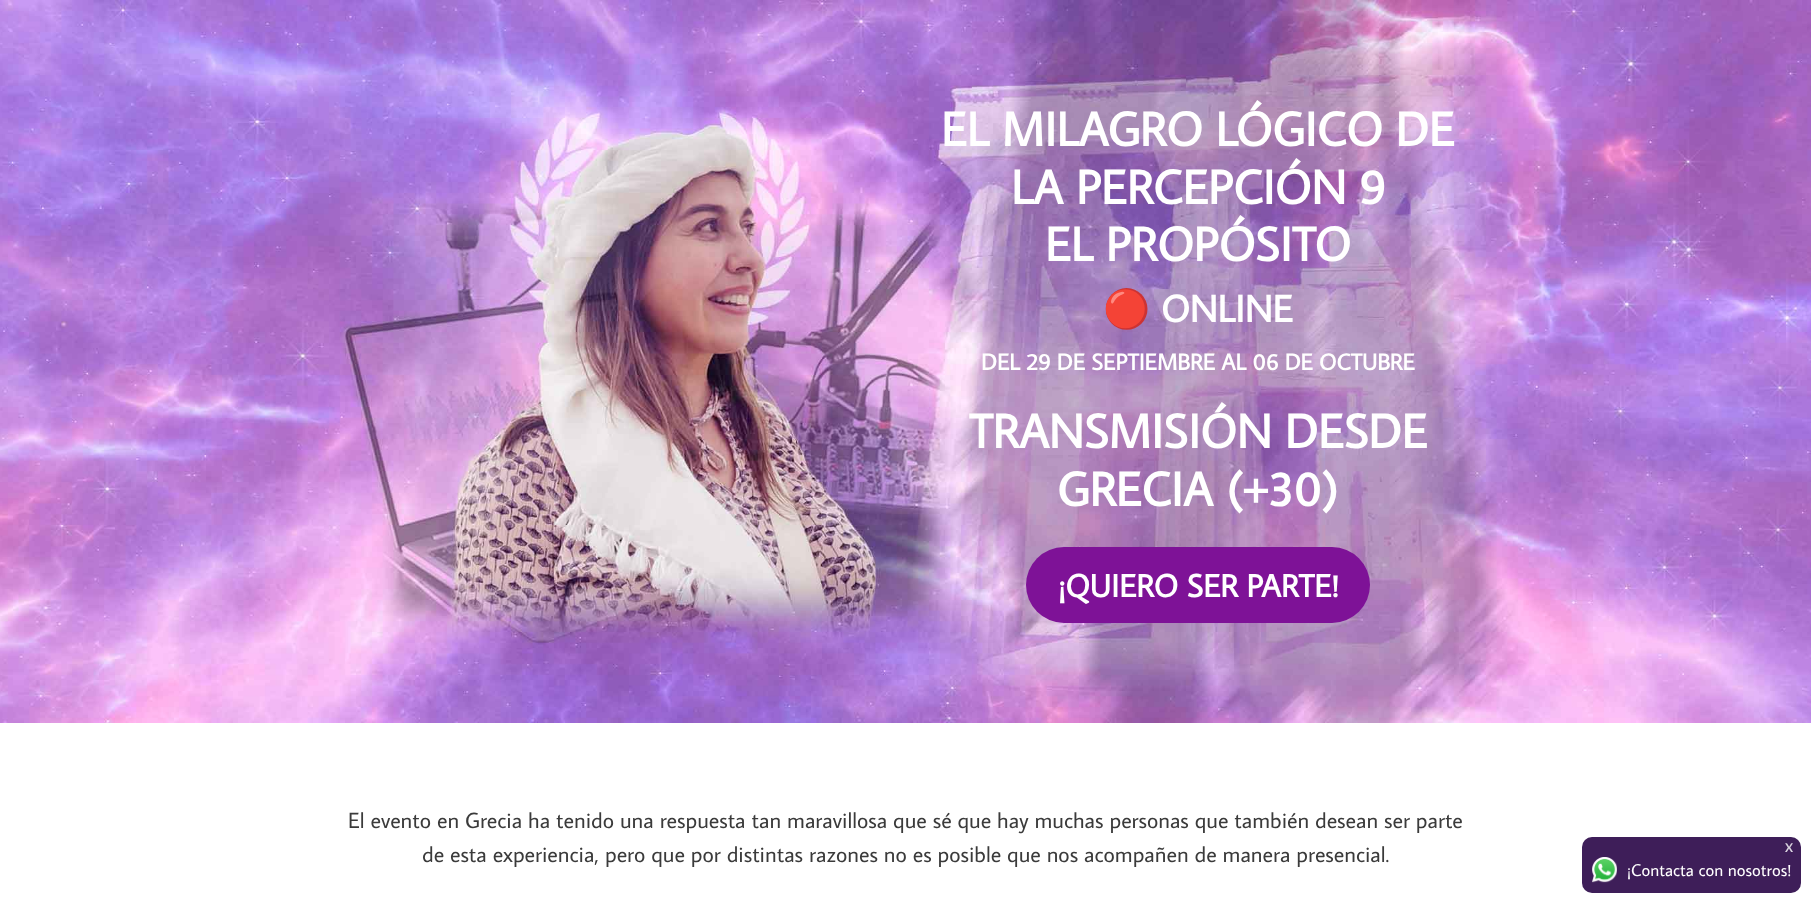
<?xml version="1.0" encoding="UTF-8"?>
<svg xmlns="http://www.w3.org/2000/svg" width="1811" height="903">
    <rect width="100%" height="100%" fill="#FFFFFF"/>
    <image x="0" y="0" width="1811" height="723" href="img_01.png"/>
    <text x="941" y="146" font-family="Average Sans" font-size="48" font-weight="700" fill="#FFFFFF">EL MILAGRO LÓGICO DE</text>
    <text x="1011" y="204" font-family="Average Sans" font-size="48" font-weight="700" fill="#FFFFFF">LA PERCEPCIÓN 9</text>
    <text x="1045" y="261" font-family="Average Sans" font-size="48" font-weight="700" fill="#FFFFFF">EL PROPÓSITO</text>
    <text x="1103" y="322" font-family="Noto Color Emoji" font-size="38" font-weight="700" fill="#FFFFFF">🔴</text>
    <text x="1161" y="322" font-family="Average Sans" font-size="38" font-weight="700" fill="#FFFFFF">ONLINE</text>
    <text x="981" y="370" font-family="Average Sans" font-size="23" font-weight="700" fill="#FFFFFF">DEL 29 DE SEPTIEMBRE AL 06 DE OCTUBRE</text>
    <text x="969" y="448" font-family="Average Sans" font-size="48" font-weight="700" fill="#FFFFFF">TRANSMISIÓN DESDE</text>
    <text x="1057" y="506" font-family="Average Sans" font-size="48" font-weight="700" fill="#FFFFFF">GRECIA (+30)</text>
    <rect x="1026" y="547" width="344" height="76" rx="38" fill="#7E1297"/>
    <text x="1058" y="597" font-family="Average Sans" font-size="32" font-weight="700" fill="#FFFFFF">¡QUIERO SER PARTE!</text>
    <text x="348" y="828" font-family="Average Sans" font-size="22" fill="#3B3B3B">El evento en Grecia ha tenido una respuesta tan maravillosa que sé que hay muchas personas que también desean ser parte</text>
    <text x="422" y="862" font-family="Average Sans" font-size="22" fill="#3B3B3B">de esta experiencia, pero que por distintas razones no es posible que nos acompañen de manera presencial.</text>
    <rect x="1582" y="837" width="219" height="56" rx="10" fill="#3E1E59"/>
    <text x="1785" y="852" font-family="Lato" font-size="12" font-weight="700" fill="#D8D2DE">X</text>
    <image x="1592" y="857" width="25" height="26" href="img_02.png"/>
    <text x="1627" y="876" font-family="Average Sans" font-size="17" fill="#FFFFFF">¡Contacta con nosotros!</text>
</svg>
